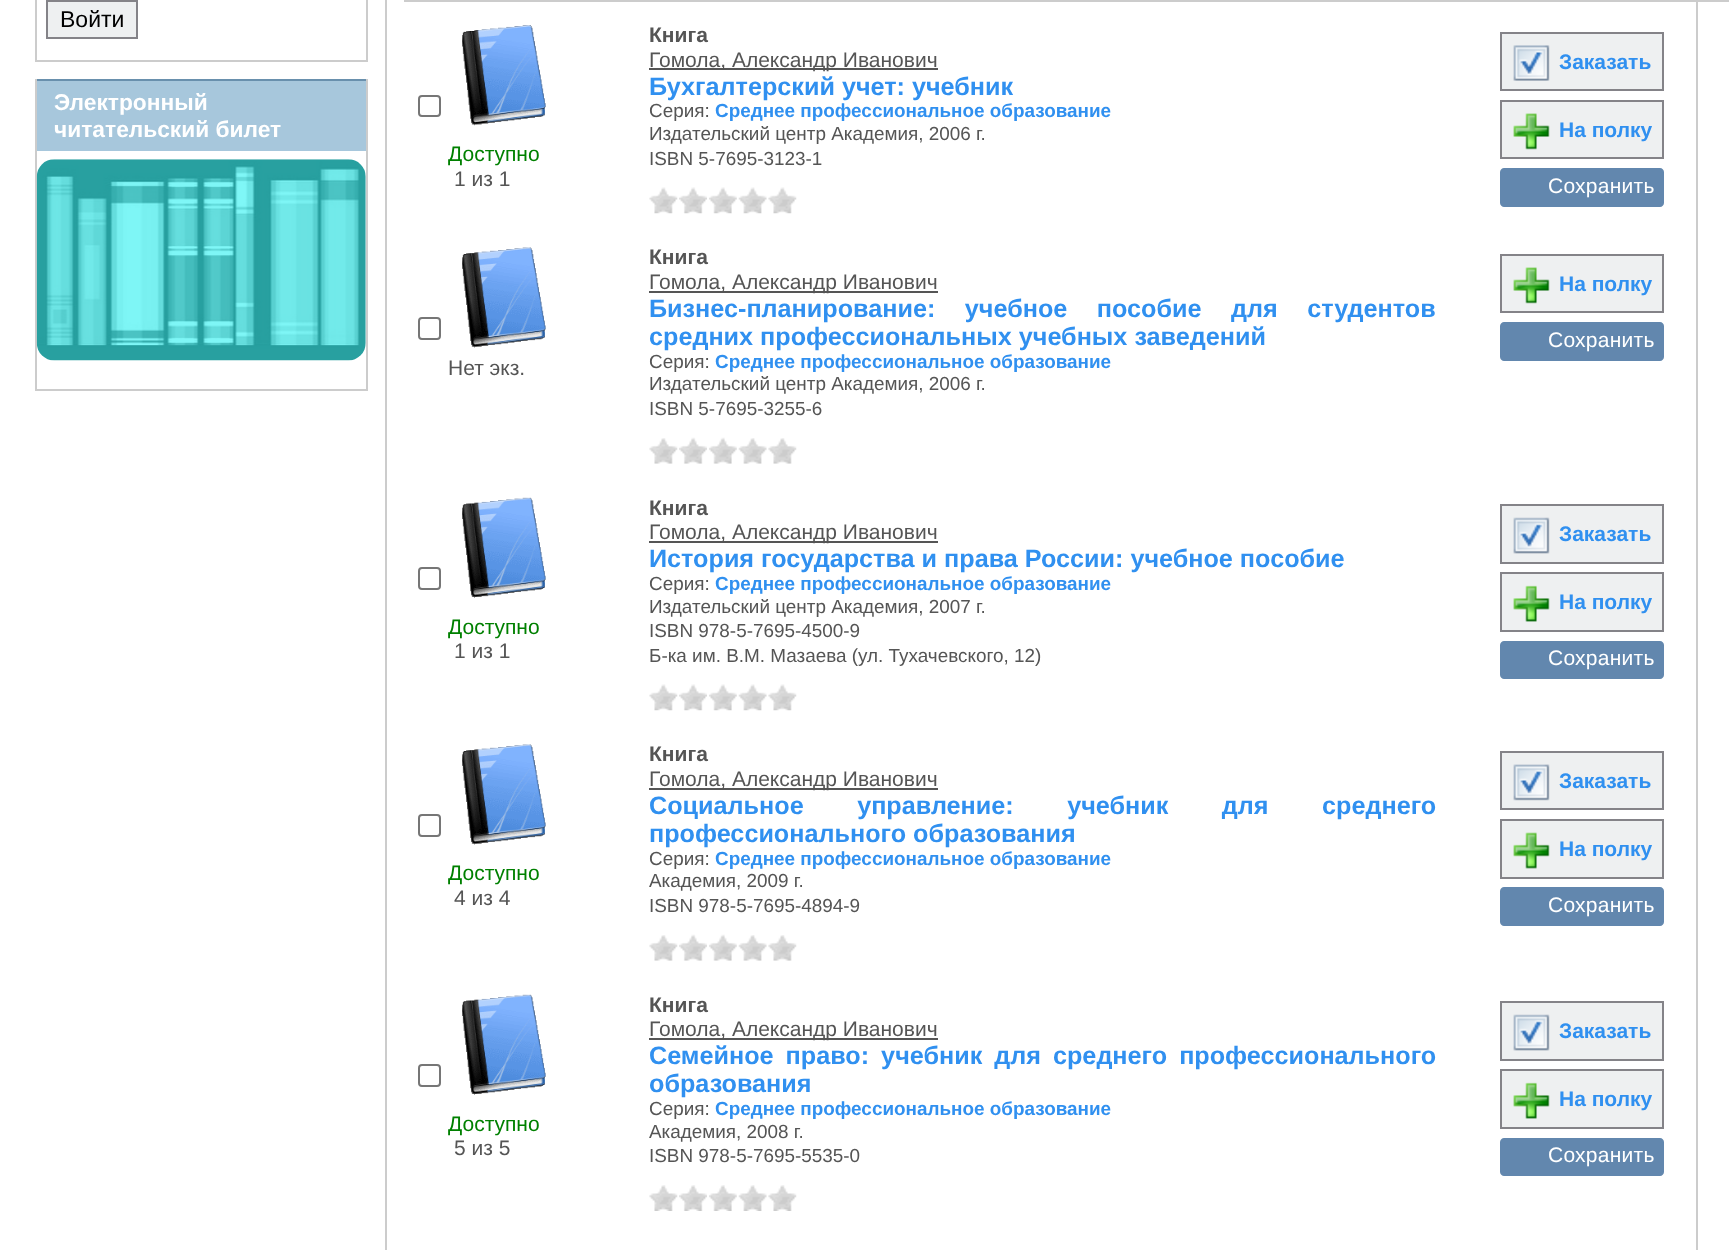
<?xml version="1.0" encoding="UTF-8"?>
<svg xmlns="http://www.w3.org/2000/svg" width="1729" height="1250">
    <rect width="100%" height="100%" fill="#FFFFFF"/>
    <rect x="366" y="0" width="2" height="61" fill="#CCCCCC"/>
    <rect x="35" y="60" width="333" height="2" fill="#CCCCCC"/>
    <rect x="35" y="0" width="2" height="61" fill="#CCCCCC"/>
    <rect x="47" y="1" width="90" height="37" fill="#EEF0F1" stroke="#848388" stroke-width="2"/>
    <text x="60" y="27" font-family="Liberation Sans" font-size="23" fill="#000000">Войти</text>
    <rect x="37" y="81" width="329" height="70" fill="#A7C7DC"/>
    <rect x="35" y="79" width="333" height="2" fill="#6990AD"/>
    <rect x="366" y="79" width="2" height="311" fill="#CCCCCC"/>
    <rect x="35" y="79" width="2" height="72" fill="#CCCCCC"/>
    <text font-family="Liberation Sans" font-size="22.75" font-weight="700" fill="#FFFFFF">
        <tspan x="54" y="110">Электронный</tspan>
        <tspan x="54" y="137">читательский билет</tspan>
    </text>
    <rect x="35" y="389" width="333" height="2" fill="#CCCCCC"/>
    <rect x="35" y="151" width="2" height="239" fill="#CCCCCC"/>
    <image x="36" y="159" width="330" height="202" href="img_01.png"/>
    <rect x="1696" y="0" width="2" height="1250" fill="#CCCCCC"/>
    <rect x="385" y="0" width="2" height="1250" fill="#CCCCCC"/>
    <rect x="404" y="0" width="1325" height="2" fill="#CCCCCC"/>
    <rect x="419" y="96" width="21" height="20" rx="3" fill="none" stroke="#767676" stroke-width="2"/>
    <image x="462" y="25" width="84" height="101" href="img_02.png"/>
    <text x="448" y="161" font-family="Liberation Sans" font-size="21" fill="#008000">Доступно</text>
    <text x="454" y="186" font-family="Liberation Sans" font-size="21" fill="#555555">1 из 1</text>
    <text x="649" y="42" font-family="Liberation Sans" font-size="21" font-weight="700" fill="#555555">Книга</text>
    <rect x="649" y="68" width="289" height="2" fill="#555555"/>
    <text x="649" y="67" font-family="Liberation Sans" font-size="21" fill="#555555">Гомола, Александр Иванович</text>
    <text x="649" y="95" font-family="Liberation Sans" font-size="25.2" font-weight="700" fill="#3090F0">Бухгалтерский учет: учебник</text>
    <text x="649" y="117" font-family="Liberation Sans" font-size="18.9" fill="#555555">Серия:</text>
    <text x="715" y="117" font-family="Liberation Sans" font-size="18.9" font-weight="700" fill="#3090F0">Среднее профессиональное образование</text>
    <text font-family="Liberation Sans" font-size="18.9" fill="#555555">
        <tspan x="649" y="140">Издательский центр Академия, 2006 г.</tspan>
        <tspan x="649" y="165">ISBN 5-7695-3123-1</tspan>
    </text>
    <image x="649" y="187" width="29" height="27" href="img_03.png"/>
    <image x="679" y="187" width="28" height="27" href="img_04.png"/>
    <image x="709" y="187" width="28" height="27" href="img_05.png"/>
    <image x="738" y="187" width="29" height="27" href="img_06.png"/>
    <image x="768" y="187" width="29" height="27" href="img_03.png"/>
    <rect x="1501" y="33" width="162" height="57" fill="#EEF0F1" stroke="#848388" stroke-width="2"/>
    <image x="1513" y="45" width="37" height="36" href="img_07.png"/>
    <text x="1559" y="69" font-family="Liberation Sans" font-size="21" font-weight="700" fill="#3090F0">Заказать</text>
    <rect x="1501" y="101" width="162" height="57" fill="#EEF0F1" stroke="#848388" stroke-width="2"/>
    <image x="1513" y="113" width="37" height="37" href="img_08.png"/>
    <text x="1559" y="137" font-family="Liberation Sans" font-size="21" font-weight="700" fill="#3090F0">На полку</text>
    <path d="M 1504 168 H 1547 V 207 H 1504 C 1502 207 1500 205 1500 203 V 172 C 1500 170 1502 168 1504 168 Z" fill="#6287AE"/>
    <path d="M 1547 168 H 1660 C 1662 168 1664 170 1664 172 V 203 C 1664 205 1662 207 1660 207 H 1547 Z" fill="#6287AE"/>
    <text x="1548" y="193" font-family="Liberation Sans" font-size="21" letter-spacing="0.25" fill="#FFFFFF">Сохранить</text>
    <text x="649" y="264" font-family="Liberation Sans" font-size="21" font-weight="700" fill="#555555">Книга</text>
    <rect x="649" y="291" width="289" height="2" fill="#555555"/>
    <text x="649" y="289" font-family="Liberation Sans" font-size="21" fill="#555555">Гомола, Александр Иванович</text>
    <text font-family="Liberation Sans" font-size="25.2" font-weight="700" fill="#3090F0">
        <tspan x="649" y="317" word-spacing="22.5">Бизнес-планирование: учебное пособие для студентов</tspan>
        <tspan x="649" y="345">средних профессиональных учебных заведений</tspan>
    </text>
    <text x="649" y="368" font-family="Liberation Sans" font-size="18.9" fill="#555555">Серия:</text>
    <text x="715" y="368" font-family="Liberation Sans" font-size="18.9" font-weight="700" fill="#3090F0">Среднее профессиональное образование</text>
    <text font-family="Liberation Sans" font-size="18.9" fill="#555555">
        <tspan x="649" y="390">Издательский центр Академия, 2006 г.</tspan>
        <tspan x="649" y="415">ISBN 5-7695-3255-6</tspan>
    </text>
    <image x="649" y="438" width="29" height="26" href="img_09.png"/>
    <image x="679" y="437" width="28" height="27" href="img_10.png"/>
    <image x="709" y="437" width="28" height="27" href="img_11.png"/>
    <image x="738" y="438" width="29" height="26" href="img_12.png"/>
    <image x="768" y="438" width="29" height="26" href="img_09.png"/>
    <rect x="1501" y="255" width="162" height="57" fill="#EEF0F1" stroke="#848388" stroke-width="2"/>
    <image x="1513" y="267" width="37" height="37" href="img_08.png"/>
    <text x="1559" y="291" font-family="Liberation Sans" font-size="21" font-weight="700" fill="#3090F0">На полку</text>
    <path d="M 1504 322 H 1547 V 361 H 1504 C 1502 361 1500 359 1500 357 V 326 C 1500 324 1502 322 1504 322 Z" fill="#6287AE"/>
    <path d="M 1547 322 H 1660 C 1662 322 1664 324 1664 326 V 357 C 1664 359 1662 361 1660 361 H 1547 Z" fill="#6287AE"/>
    <text x="1548" y="347" font-family="Liberation Sans" font-size="21" letter-spacing="0.25" fill="#FFFFFF">Сохранить</text>
    <rect x="419" y="318" width="21" height="21" rx="3" fill="none" stroke="#767676" stroke-width="2"/>
    <image x="462" y="247" width="84" height="101" href="img_13.png"/>
    <text x="448" y="375" font-family="Liberation Sans" font-size="21" fill="#555555">Нет экз.</text>
    <rect x="419" y="568" width="21" height="21" rx="3" fill="none" stroke="#767676" stroke-width="2"/>
    <image x="462" y="497" width="84" height="101" href="img_14.png"/>
    <text x="448" y="634" font-family="Liberation Sans" font-size="21" fill="#008000">Доступно</text>
    <text x="454" y="658" font-family="Liberation Sans" font-size="21" fill="#555555">1 из 1</text>
    <text x="649" y="515" font-family="Liberation Sans" font-size="21" font-weight="700" fill="#555555">Книга</text>
    <rect x="649" y="541" width="289" height="2" fill="#555555"/>
    <text x="649" y="539" font-family="Liberation Sans" font-size="21" fill="#555555">Гомола, Александр Иванович</text>
    <text x="649" y="567" font-family="Liberation Sans" font-size="25.2" font-weight="700" fill="#3090F0">История государства и права России: учебное пособие</text>
    <text x="649" y="590" font-family="Liberation Sans" font-size="18.9" fill="#555555">Серия:</text>
    <text x="715" y="590" font-family="Liberation Sans" font-size="18.9" font-weight="700" fill="#3090F0">Среднее профессиональное образование</text>
    <text font-family="Liberation Sans" font-size="18.9" fill="#555555">
        <tspan x="649" y="613">Издательский центр Академия, 2007 г.</tspan>
        <tspan x="649" y="637">ISBN 978-5-7695-4500-9</tspan>
        <tspan x="649" y="662">Б-ка им. В.М. Мазаева (ул. Тухачевского, 12)</tspan>
    </text>
    <image x="649" y="684" width="29" height="27" href="img_15.png"/>
    <image x="679" y="684" width="28" height="27" href="img_16.png"/>
    <image x="709" y="684" width="28" height="27" href="img_17.png"/>
    <image x="738" y="684" width="29" height="27" href="img_18.png"/>
    <image x="768" y="684" width="29" height="27" href="img_15.png"/>
    <rect x="1501" y="505" width="162" height="58" fill="#EEF0F1" stroke="#848388" stroke-width="2"/>
    <image x="1513" y="517" width="37" height="37" href="img_19.png"/>
    <text x="1559" y="541" font-family="Liberation Sans" font-size="21" font-weight="700" fill="#3090F0">Заказать</text>
    <rect x="1501" y="573" width="162" height="58" fill="#EEF0F1" stroke="#848388" stroke-width="2"/>
    <image x="1513" y="585" width="37" height="37" href="img_20.png"/>
    <text x="1559" y="609" font-family="Liberation Sans" font-size="21" font-weight="700" fill="#3090F0">На полку</text>
    <path d="M 1504 641 H 1547 V 679 H 1504 C 1502 679 1500 677 1500 675 V 645 C 1500 643 1502 641 1504 641 Z" fill="#6287AE"/>
    <path d="M 1547 641 H 1660 C 1662 641 1664 643 1664 645 V 675 C 1664 677 1662 679 1660 679 H 1547 Z" fill="#6287AE"/>
    <text x="1548" y="665" font-family="Liberation Sans" font-size="21" letter-spacing="0.25" fill="#FFFFFF">Сохранить</text>
    <rect x="419" y="815" width="21" height="21" rx="3" fill="none" stroke="#767676" stroke-width="2"/>
    <image x="462" y="744" width="84" height="101" href="img_13.png"/>
    <text x="448" y="880" font-family="Liberation Sans" font-size="21" fill="#008000">Доступно</text>
    <text x="454" y="905" font-family="Liberation Sans" font-size="21" fill="#555555">4 из 4</text>
    <text x="649" y="761" font-family="Liberation Sans" font-size="21" font-weight="700" fill="#555555">Книга</text>
    <rect x="649" y="788" width="289" height="2" fill="#555555"/>
    <text x="649" y="786" font-family="Liberation Sans" font-size="21" fill="#555555">Гомола, Александр Иванович</text>
    <text font-family="Liberation Sans" font-size="25.2" font-weight="700" fill="#3090F0">
        <tspan x="649" y="814" word-spacing="46.5">Социальное управление: учебник для среднего</tspan>
        <tspan x="649" y="842">профессионального образования</tspan>
    </text>
    <text x="649" y="865" font-family="Liberation Sans" font-size="18.9" fill="#555555">Серия:</text>
    <text x="715" y="865" font-family="Liberation Sans" font-size="18.9" font-weight="700" fill="#3090F0">Среднее профессиональное образование</text>
    <text font-family="Liberation Sans" font-size="18.9" fill="#555555">
        <tspan x="649" y="887">Академия, 2009 г.</tspan>
        <tspan x="649" y="912">ISBN 978-5-7695-4894-9</tspan>
    </text>
    <image x="649" y="935" width="29" height="26" href="img_09.png"/>
    <image x="679" y="934" width="28" height="27" href="img_10.png"/>
    <image x="709" y="934" width="28" height="27" href="img_11.png"/>
    <image x="738" y="935" width="29" height="26" href="img_12.png"/>
    <image x="768" y="935" width="29" height="26" href="img_09.png"/>
    <rect x="1501" y="752" width="162" height="57" fill="#EEF0F1" stroke="#848388" stroke-width="2"/>
    <image x="1513" y="764" width="37" height="37" href="img_21.png"/>
    <text x="1559" y="788" font-family="Liberation Sans" font-size="21" font-weight="700" fill="#3090F0">Заказать</text>
    <rect x="1501" y="820" width="162" height="58" fill="#EEF0F1" stroke="#848388" stroke-width="2"/>
    <image x="1513" y="832" width="37" height="37" href="img_22.png"/>
    <text x="1559" y="856" font-family="Liberation Sans" font-size="21" font-weight="700" fill="#3090F0">На полку</text>
    <path d="M 1504 887 H 1547 V 926 H 1504 C 1502 926 1500 924 1500 922 V 891 C 1500 889 1502 887 1504 887 Z" fill="#6287AE"/>
    <path d="M 1547 887 H 1660 C 1662 887 1664 889 1664 891 V 922 C 1664 924 1662 926 1660 926 H 1547 Z" fill="#6287AE"/>
    <text x="1548" y="912" font-family="Liberation Sans" font-size="21" letter-spacing="0.25" fill="#FFFFFF">Сохранить</text>
    <rect x="419" y="1065" width="21" height="21" rx="3" fill="none" stroke="#767676" stroke-width="2"/>
    <image x="462" y="994" width="84" height="101" href="img_14.png"/>
    <text x="448" y="1131" font-family="Liberation Sans" font-size="21" fill="#008000">Доступно</text>
    <text x="454" y="1155" font-family="Liberation Sans" font-size="21" fill="#555555">5 из 5</text>
    <text x="649" y="1012" font-family="Liberation Sans" font-size="21" font-weight="700" fill="#555555">Книга</text>
    <rect x="649" y="1038" width="289" height="2" fill="#555555"/>
    <text x="649" y="1036" font-family="Liberation Sans" font-size="21" fill="#555555">Гомола, Александр Иванович</text>
    <text font-family="Liberation Sans" font-size="25.2" font-weight="700" fill="#3090F0">
        <tspan x="649" y="1064" word-spacing="5">Семейное право: учебник для среднего профессионального</tspan>
        <tspan x="649" y="1092">образования</tspan>
    </text>
    <text x="649" y="1115" font-family="Liberation Sans" font-size="18.9" fill="#555555">Серия:</text>
    <text x="715" y="1115" font-family="Liberation Sans" font-size="18.9" font-weight="700" fill="#3090F0">Среднее профессиональное образование</text>
    <text font-family="Liberation Sans" font-size="18.9" fill="#555555">
        <tspan x="649" y="1138">Академия, 2008 г.</tspan>
        <tspan x="649" y="1162">ISBN 978-5-7695-5535-0</tspan>
    </text>
    <image x="649" y="1185" width="29" height="26" href="img_23.png"/>
    <image x="679" y="1185" width="28" height="26" href="img_24.png"/>
    <image x="709" y="1185" width="28" height="26" href="img_25.png"/>
    <image x="738" y="1185" width="29" height="26" href="img_26.png"/>
    <image x="768" y="1185" width="29" height="26" href="img_23.png"/>
    <rect x="1501" y="1002" width="162" height="58" fill="#EEF0F1" stroke="#848388" stroke-width="2"/>
    <image x="1513" y="1014" width="37" height="37" href="img_19.png"/>
    <text x="1559" y="1038" font-family="Liberation Sans" font-size="21" font-weight="700" fill="#3090F0">Заказать</text>
    <rect x="1501" y="1070" width="162" height="58" fill="#EEF0F1" stroke="#848388" stroke-width="2"/>
    <image x="1513" y="1082" width="37" height="37" href="img_20.png"/>
    <text x="1559" y="1106" font-family="Liberation Sans" font-size="21" font-weight="700" fill="#3090F0">На полку</text>
    <path d="M 1504 1138 H 1547 V 1176 H 1504 C 1502 1176 1500 1174 1500 1172 V 1142 C 1500 1140 1502 1138 1504 1138 Z" fill="#6287AE"/>
    <path d="M 1547 1138 H 1660 C 1662 1138 1664 1140 1664 1142 V 1172 C 1664 1174 1662 1176 1660 1176 H 1547 Z" fill="#6287AE"/>
    <text x="1548" y="1162" font-family="Liberation Sans" font-size="21" letter-spacing="0.25" fill="#FFFFFF">Сохранить</text>
</svg>
